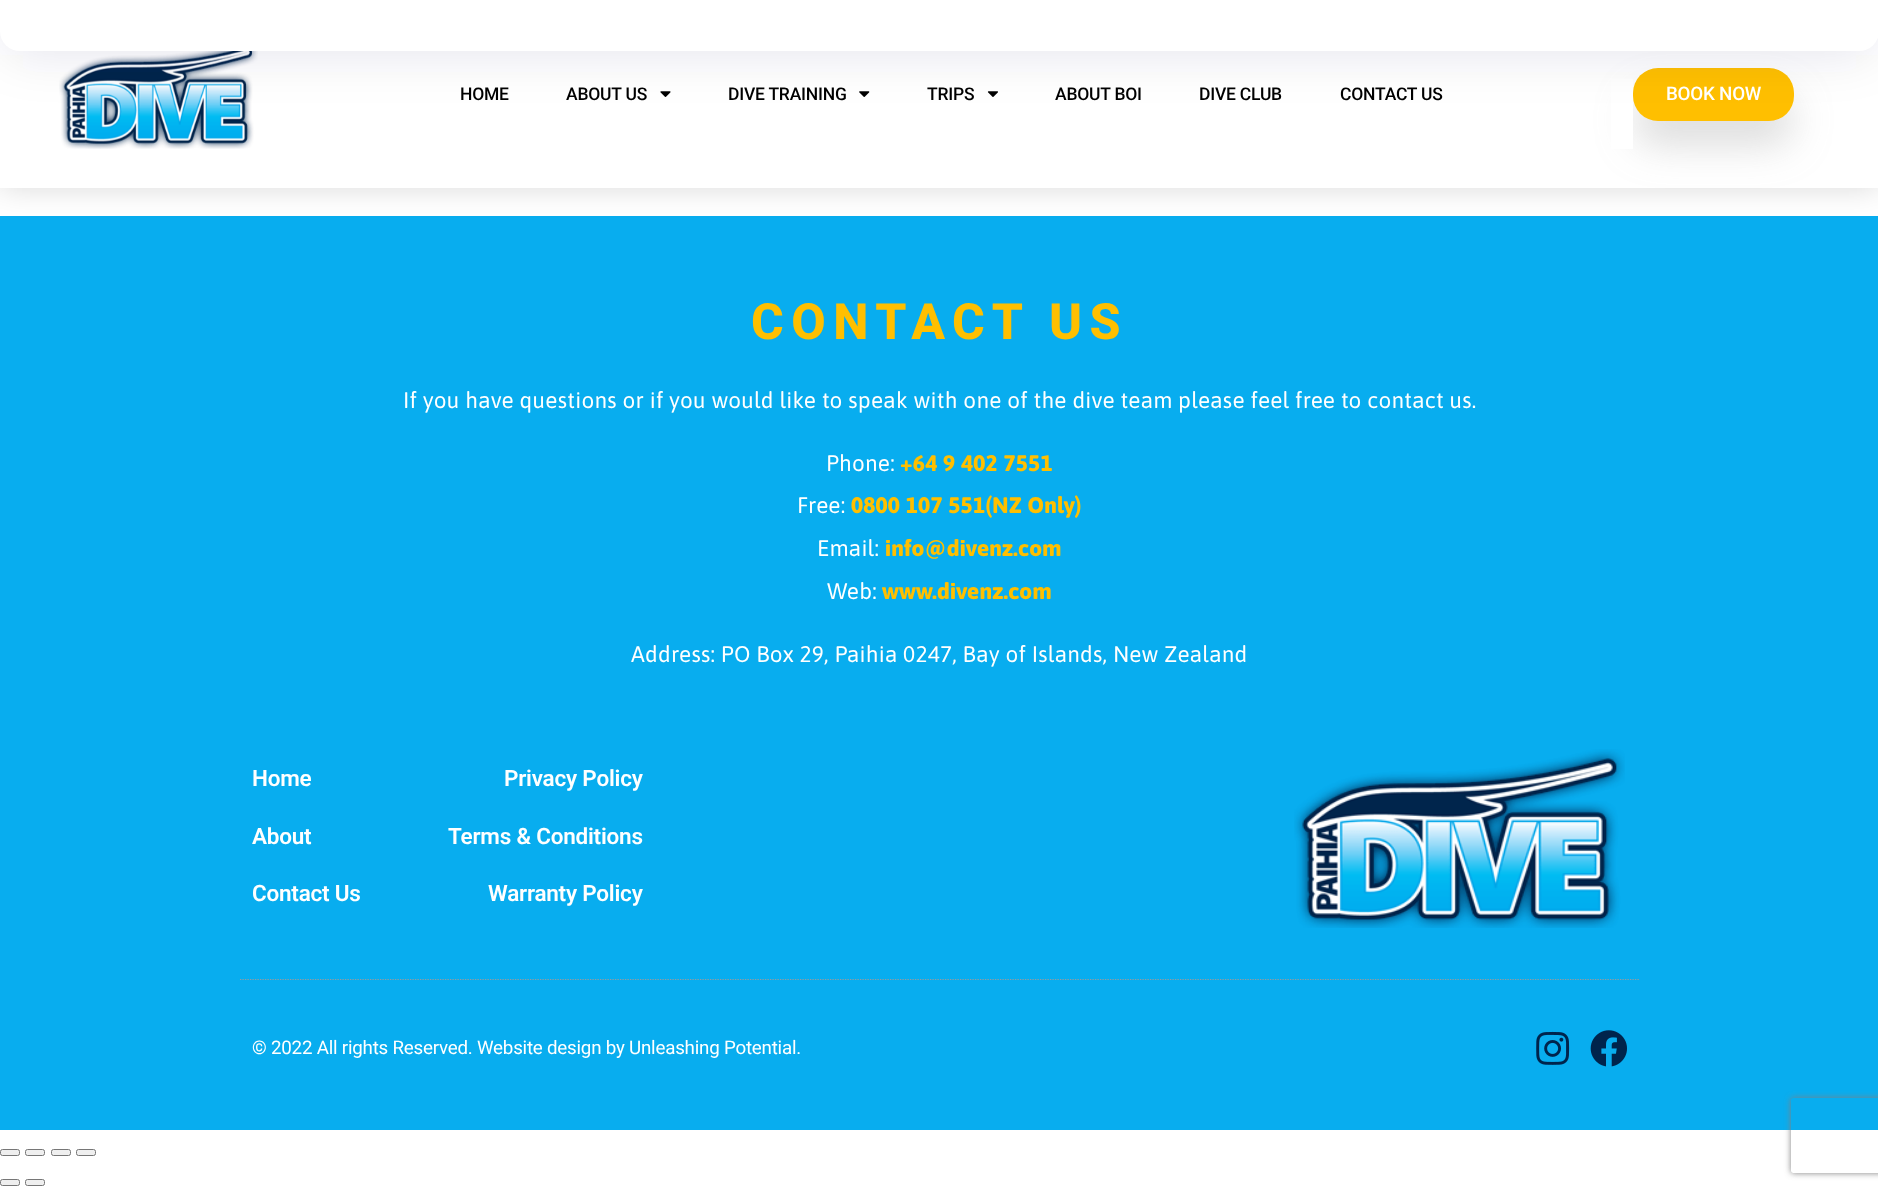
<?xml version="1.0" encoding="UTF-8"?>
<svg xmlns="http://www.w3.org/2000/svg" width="1878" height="1190">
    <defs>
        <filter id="blur1" x="-50%" y="-200%" width="200%" height="500%"><feGaussianBlur stdDeviation="15"/></filter>
        <filter id="blur2" x="-50%" y="-200%" width="200%" height="500%"><feGaussianBlur stdDeviation="19"/></filter>
        <filter id="blur3" x="-50%" y="-200%" width="200%" height="500%"><feGaussianBlur stdDeviation="25"/></filter>
        <clipPath id="clip1"><path d="M 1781 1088 H 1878 V 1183 H 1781 Z M 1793.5 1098 H 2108.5 C 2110 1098 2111 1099 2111 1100.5 V 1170.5 C 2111 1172 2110 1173 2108.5 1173 H 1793.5 C 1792 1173 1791 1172 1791 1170.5 V 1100.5 C 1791 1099 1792 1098 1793.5 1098 Z" clip-rule="evenodd"/></clipPath>
        <filter id="blur4" x="-50%" y="-200%" width="200%" height="500%"><feGaussianBlur stdDeviation="3"/></filter>
    </defs>
    <rect width="100%" height="100%" fill="#FFFFFF"/>
    <rect x="0" y="216" width="1878" height="914" fill="#08ADEF"/>
    <rect x="0" y="0" width="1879" height="188" fill="#000000" fill-opacity="0.15" filter="url(#blur1)"/>
    <rect x="0" y="31" width="1878" height="157" fill="#FFFFFF"/>
    <image x="59" y="51" width="199" height="98" href="img_01.png"/>
    <rect x="1633" y="93" width="161" height="53" rx="25" fill="#ACACAC" fill-opacity="0.4" filter="url(#blur2)"/>
    <rect x="1611" y="79" width="22" height="70" fill="#FFFFFF"/>
    <image x="660" y="91" width="11" height="6" href="img_02.png"/>
    <image x="859" y="91" width="11" height="6" href="img_03.png"/>
    <image x="987" y="91" width="11" height="6" href="img_04.png"/>
    <rect x="1633" y="68" width="161" height="53" rx="25" fill="#FFBF00"/>
    <rect x="6" y="-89" width="1867" height="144" rx="14" fill="#091F43" fill-opacity="0.1" filter="url(#blur3)"/>
    <rect x="0" y="-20" width="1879" height="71" rx="20" fill="#FFFFFF"/>
    <text x="460" y="100" font-family="Roboto" font-size="17.5" font-weight="500" letter-spacing="-0.22" fill="#000000">HOME</text>
    <text x="566" y="100" font-family="Roboto" font-size="17.5" font-weight="500" letter-spacing="-0.22" fill="#000000">ABOUT US</text>
    <text x="728" y="100" font-family="Roboto" font-size="17.5" font-weight="500" letter-spacing="-0.22" fill="#000000">DIVE TRAINING</text>
    <text x="927" y="100" font-family="Roboto" font-size="17.5" font-weight="500" letter-spacing="-0.22" fill="#000000">TRIPS</text>
    <text x="1055" y="100" font-family="Roboto" font-size="17.5" font-weight="500" letter-spacing="-0.22" fill="#000000">ABOUT BOI</text>
    <text x="1199" y="100" font-family="Roboto" font-size="17.5" font-weight="500" letter-spacing="-0.22" fill="#000000">DIVE CLUB</text>
    <text x="1340" y="100" font-family="Roboto" font-size="17.5" font-weight="500" letter-spacing="-0.22" fill="#000000">CONTACT US</text>
    <text x="1666" y="100" font-family="Roboto" font-size="18.75" font-weight="500" letter-spacing="-0.22" fill="#FFFFFF">BOOK NOW</text>
    <text x="751" y="339" font-family="Roboto" font-size="50" font-weight="800" letter-spacing="7.5" fill="#FFBF00">CONTACT US</text>
    <text x="403" y="408" font-family="Asap" font-size="22.5" letter-spacing="0.25" fill="#FFFFFF">If you have questions or if you would like to speak with one of the dive team please feel free to contact us.</text>
    <text x="826" y="471" font-family="Asap" font-size="22.5" letter-spacing="0.25" fill="#FFFFFF">Phone:</text>
    <text x="900" y="471" font-family="Asap" font-size="22.5" font-weight="800" letter-spacing="0.25" fill="#FFBF00">+64 9 402 7551</text>
    <text x="797" y="513" font-family="Asap" font-size="22.5" letter-spacing="0.25" fill="#FFFFFF">Free:</text>
    <text x="851" y="513" font-family="Asap" font-size="22.5" font-weight="800" letter-spacing="0.25" fill="#FFBF00">0800 107 551(NZ Only)</text>
    <text x="817" y="556" font-family="Asap" font-size="22.5" letter-spacing="0.25" fill="#FFFFFF">Email:</text>
    <text x="885" y="556" font-family="Asap" font-size="22.5" font-weight="800" letter-spacing="0.25" fill="#FFBF00">info@divenz.com</text>
    <text x="827" y="599" font-family="Asap" font-size="22.5" letter-spacing="0.25" fill="#FFFFFF">Web:</text>
    <text x="882" y="599" font-family="Asap" font-size="22.5" font-weight="800" letter-spacing="0.25" fill="#FFBF00">www.divenz.com</text>
    <text x="631" y="662" font-family="Asap" font-size="22.5" letter-spacing="0.25" fill="#FFFFFF">Address: PO Box 29, Paihia 0247, Bay of Islands, New Zealand</text>
    <path d="M 240 979.5 H 1640" fill="none" stroke="#9B9B9B" stroke-width="1.2" stroke-dasharray="1.25 1.25"/>
    <text x="252" y="786" font-family="Roboto" font-size="22.5" font-weight="600" letter-spacing="-0.22" fill="#FFFFFF">Home</text>
    <text x="252" y="844" font-family="Roboto" font-size="22.5" font-weight="600" letter-spacing="-0.22" fill="#FFFFFF">About</text>
    <text x="252" y="901" font-family="Roboto" font-size="22.5" font-weight="600" letter-spacing="-0.22" fill="#FFFFFF">Contact Us</text>
    <text x="504" y="786" font-family="Roboto" font-size="22.5" font-weight="600" letter-spacing="-0.22" fill="#FFFFFF">Privacy Policy</text>
    <text x="448" y="844" font-family="Roboto" font-size="22.5" font-weight="600" letter-spacing="-0.22" fill="#FFFFFF">Terms &amp; Conditions</text>
    <text x="488" y="901" font-family="Roboto" font-size="22.5" font-weight="600" letter-spacing="-0.22" fill="#FFFFFF">Warranty Policy</text>
    <image x="1294" y="749" width="331" height="179" href="img_05.png"/>
    <text x="252" y="1054" font-family="Roboto" font-size="18.75" letter-spacing="-0.22" fill="#FFFFFF">© 2022 All rights Reserved. Website design by Unleashing Potential.</text>
    <image x="1536" y="1031" width="34" height="34" href="img_06.png"/>
    <image x="1590" y="1030" width="37" height="37" href="img_07.png"/>
    <rect x="0.5" y="1149.5" width="19" height="6" rx="2" fill="#EFEFEF" stroke="#767676"/>
    <rect x="25.5" y="1149.5" width="19" height="6" rx="2" fill="#EFEFEF" stroke="#767676"/>
    <rect x="51.5" y="1149.5" width="19" height="6" rx="2" fill="#EFEFEF" stroke="#767676"/>
    <rect x="76.5" y="1149.5" width="19" height="6" rx="2" fill="#EFEFEF" stroke="#767676"/>
    <rect x="0.5" y="1179.5" width="19" height="6" rx="2" fill="#EFEFEF" stroke="#767676"/>
    <rect x="25.5" y="1179.5" width="19" height="6" rx="2" fill="#EFEFEF" stroke="#767676"/>
    <g clip-path="url(#clip1)">
        <rect x="1791" y="1098" width="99" height="75" rx="2.5" fill="#808080" filter="url(#blur4)"/>
    </g>
</svg>
